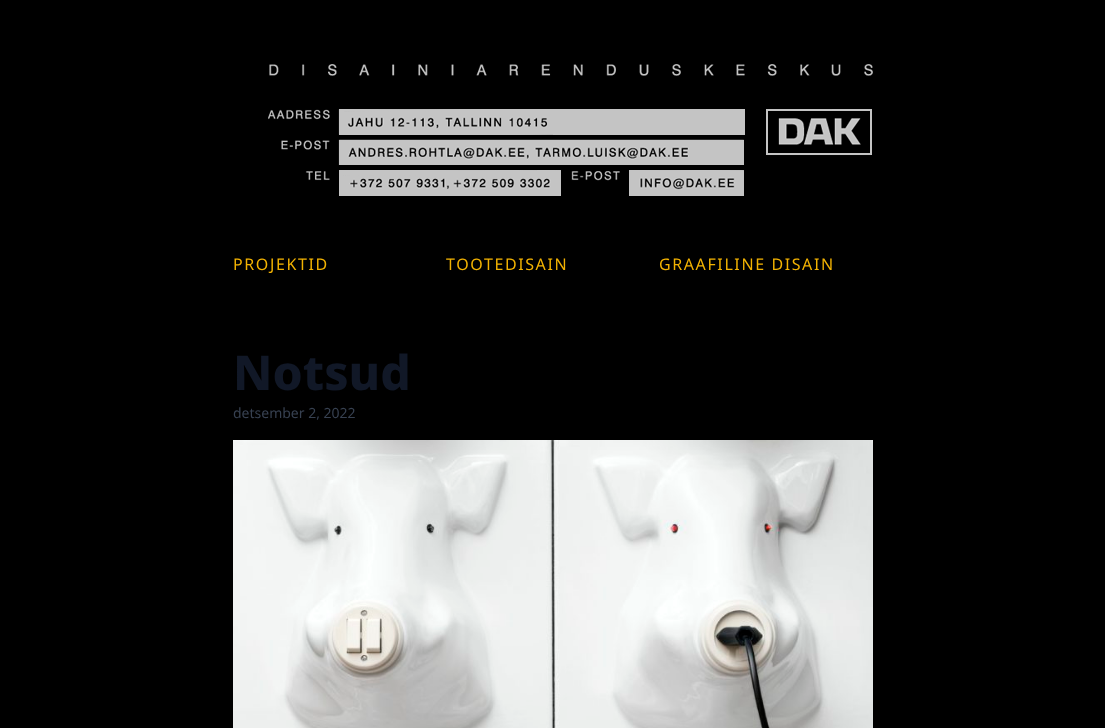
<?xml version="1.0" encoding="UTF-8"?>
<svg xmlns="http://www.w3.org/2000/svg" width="1105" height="728">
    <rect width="100%" height="100%" fill="#000000"/>
    <image x="268" y="64" width="605" height="132" href="img_01.png"/>
    <text x="233" y="270" font-family="Noto Sans" font-size="16" letter-spacing="1.6" fill="#F2B202">PROJEKTID</text>
    <text x="446" y="270" font-family="Noto Sans" font-size="16" letter-spacing="1.6" fill="#F2B202">TOOTEDISAIN</text>
    <text x="659" y="270" font-family="Noto Sans" font-size="16" letter-spacing="1.6" fill="#F2B202">GRAAFILINE DISAIN</text>
    <text x="233" y="390" font-family="Noto Sans" font-size="48" font-weight="800" fill="#111827">Notsud</text>
    <text x="233" y="418" font-family="Noto Sans" font-size="14" fill="#374151">detsember 2, 2022</text>
    <image x="233" y="440" width="640" height="288" href="img_02.png"/>
</svg>
